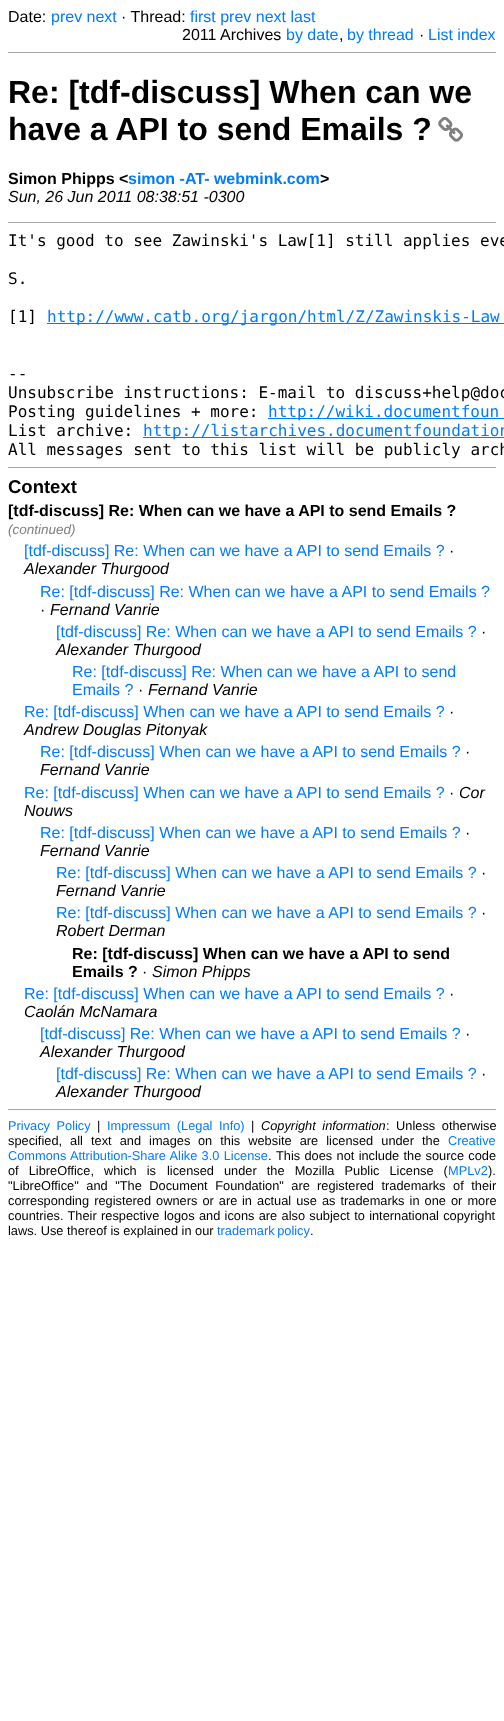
<?xml version="1.0" encoding="UTF-8"?>
<svg xmlns="http://www.w3.org/2000/svg" width="504" height="1721">
    <rect width="100%" height="100%" fill="#FFFFFF"/>
    <text x="8" y="22" font-family="Liberation Sans" font-size="16" fill="#000000">Date:</text>
    <text x="51" y="22" font-family="Liberation Sans" font-size="16" fill="#007BFF">prev next</text>
    <text x="121" y="22" font-family="Liberation Sans" font-size="16" fill="#000000">· Thread:</text>
    <text x="190" y="22" font-family="Liberation Sans" font-size="16" fill="#007BFF">first prev next last</text>
    <text x="182" y="40" font-family="Liberation Sans" font-size="16" fill="#000000">2011 Archives</text>
    <text x="286" y="40" font-family="Liberation Sans" font-size="16" fill="#007BFF">by date</text>
    <text x="347" y="40" font-family="Liberation Sans" font-size="16" fill="#007BFF">by thread</text>
    <text x="419" y="40" font-family="Liberation Sans" font-size="16" fill="#000000">·</text>
    <text x="428" y="40" font-family="Liberation Sans" font-size="16" fill="#007BFF">List index</text>
    <text x="339" y="40" font-family="Liberation Sans" font-size="16" fill="#000000">,</text>
    <rect x="8" y="52" width="488" height="1" fill="#A6A6A6"/>
    <text font-family="Liberation Sans" font-size="32" font-weight="700" fill="#000000">
        <tspan x="8" y="103">Re: [tdf-discuss] When can we</tspan>
        <tspan x="8" y="140">have a API to send Emails ?</tspan>
    </text>
    <image x="438" y="116" width="25" height="26" href="img_01.png"/>
    <text x="8" y="184" font-family="Liberation Sans" font-size="16" font-weight="700" fill="#000000">Simon Phipps &lt;</text>
    <text x="128" y="184" font-family="Liberation Sans" font-size="16" font-weight="700" fill="#007BFF">simon -AT- webmink.com</text>
    <text x="320" y="184" font-family="Liberation Sans" font-size="16" font-weight="700" fill="#000000">&gt;</text>
    <text x="8" y="202" font-family="Liberation Sans" font-size="16" font-style="italic" fill="#000000">Sun, 26 Jun 2011 08:38:51 -0300</text>
    <rect x="8" y="222" width="488" height="1" fill="#A6A6A6"/>
    <text x="8" y="246" font-family="DejaVu Sans Mono" font-size="16" fill="#000000">It's good to see Zawinski's Law[1] still applies eve</text>
    <text x="8" y="284" font-family="DejaVu Sans Mono" font-size="16" fill="#000000">S.</text>
    <text x="8" y="322" font-family="DejaVu Sans Mono" font-size="16" fill="#000000">[1]</text>
    <rect x="47" y="323" width="457" height="1" fill="#007BFF"/>
    <text x="47" y="322" font-family="DejaVu Sans Mono" font-size="16" fill="#007BFF">http://www.catb.org/jargon/html/Z/Zawinskis-Law</text>
    <text font-family="DejaVu Sans Mono" font-size="16" fill="#000000">
        <tspan x="8" y="379">--</tspan>
        <tspan x="8" y="398">Unsubscribe instructions: E-mail to discuss+help@doc</tspan>
        <tspan x="8" y="417">Posting guidelines + more:</tspan>
    </text>
    <rect x="268" y="418" width="236" height="1" fill="#007BFF"/>
    <text x="268" y="417" font-family="DejaVu Sans Mono" font-size="16" fill="#007BFF">http://wiki.documentfoun</text>
    <text x="8" y="436" font-family="DejaVu Sans Mono" font-size="16" fill="#000000">List archive:</text>
    <rect x="143" y="437" width="361" height="1" fill="#007BFF"/>
    <text x="143" y="436" font-family="DejaVu Sans Mono" font-size="16" fill="#007BFF">http://listarchives.documentfoundation</text>
    <text x="8" y="455" font-family="DejaVu Sans Mono" font-size="16" fill="#000000">All messages sent to this list will be publicly arch</text>
    <rect x="8" y="467" width="488" height="1" fill="#A6A6A6"/>
    <text x="8" y="493" font-family="Liberation Sans" font-size="18.5" font-weight="700" fill="#000000">Context</text>
    <text x="8" y="516" font-family="Liberation Sans" font-size="16" font-weight="700" fill="#000000">[tdf-discuss] Re: When can we have a API to send Emails ?</text>
    <text x="8" y="534" font-family="Liberation Sans" font-size="13.5" font-style="italic" fill="#808080">(continued)</text>
    <text x="24" y="556" font-family="Liberation Sans" font-size="16" fill="#007BFF">[tdf-discuss] Re: When can we have a API to send Emails ?</text>
    <text x="449" y="556" font-family="Liberation Sans" font-size="16" fill="#000000">·</text>
    <text x="24" y="574" font-family="Liberation Sans" font-size="16" font-style="italic" fill="#000000">Alexander Thurgood</text>
    <text x="40" y="597" font-family="Liberation Sans" font-size="16" fill="#007BFF">Re: [tdf-discuss] Re: When can we have a API to send Emails ?</text>
    <text x="40" y="615" font-family="Liberation Sans" font-size="16" fill="#000000">·</text>
    <text x="50" y="615" font-family="Liberation Sans" font-size="16" font-style="italic" fill="#000000">Fernand Vanrie</text>
    <text x="56" y="637" font-family="Liberation Sans" font-size="16" fill="#007BFF">[tdf-discuss] Re: When can we have a API to send Emails ?</text>
    <text x="481" y="637" font-family="Liberation Sans" font-size="16" fill="#000000">·</text>
    <text x="56" y="655" font-family="Liberation Sans" font-size="16" font-style="italic" fill="#000000">Alexander Thurgood</text>
    <text font-family="Liberation Sans" font-size="16" fill="#007BFF">
        <tspan x="72" y="677">Re: [tdf-discuss] Re: When can we have a API to send</tspan>
        <tspan x="72" y="695">Emails ?</tspan>
    </text>
    <text x="138" y="695" font-family="Liberation Sans" font-size="16" fill="#000000">·</text>
    <text x="148" y="695" font-family="Liberation Sans" font-size="16" font-style="italic" fill="#000000">Fernand Vanrie</text>
    <text x="24" y="717" font-family="Liberation Sans" font-size="16" fill="#007BFF">Re: [tdf-discuss] When can we have a API to send Emails ?</text>
    <text x="449" y="717" font-family="Liberation Sans" font-size="16" fill="#000000">·</text>
    <text x="24" y="735" font-family="Liberation Sans" font-size="16" font-style="italic" fill="#000000">Andrew Douglas Pitonyak</text>
    <text x="40" y="757" font-family="Liberation Sans" font-size="16" fill="#007BFF">Re: [tdf-discuss] When can we have a API to send Emails ?</text>
    <text x="465" y="757" font-family="Liberation Sans" font-size="16" fill="#000000">·</text>
    <text x="40" y="775" font-family="Liberation Sans" font-size="16" font-style="italic" fill="#000000">Fernand Vanrie</text>
    <text x="24" y="798" font-family="Liberation Sans" font-size="16" fill="#007BFF">Re: [tdf-discuss] When can we have a API to send Emails ?</text>
    <text x="449" y="798" font-family="Liberation Sans" font-size="16" fill="#000000">·</text>
    <text x="459" y="798" font-family="Liberation Sans" font-size="16" font-style="italic" fill="#000000">Cor</text>
    <text x="24" y="816" font-family="Liberation Sans" font-size="16" font-style="italic" fill="#000000">Nouws</text>
    <text x="40" y="838" font-family="Liberation Sans" font-size="16" fill="#007BFF">Re: [tdf-discuss] When can we have a API to send Emails ?</text>
    <text x="465" y="838" font-family="Liberation Sans" font-size="16" fill="#000000">·</text>
    <text x="40" y="856" font-family="Liberation Sans" font-size="16" font-style="italic" fill="#000000">Fernand Vanrie</text>
    <text x="56" y="878" font-family="Liberation Sans" font-size="16" fill="#007BFF">Re: [tdf-discuss] When can we have a API to send Emails ?</text>
    <text x="481" y="878" font-family="Liberation Sans" font-size="16" fill="#000000">·</text>
    <text x="56" y="896" font-family="Liberation Sans" font-size="16" font-style="italic" fill="#000000">Fernand Vanrie</text>
    <text x="56" y="918" font-family="Liberation Sans" font-size="16" fill="#007BFF">Re: [tdf-discuss] When can we have a API to send Emails ?</text>
    <text x="481" y="918" font-family="Liberation Sans" font-size="16" fill="#000000">·</text>
    <text x="56" y="936" font-family="Liberation Sans" font-size="16" font-style="italic" fill="#000000">Robert Derman</text>
    <text font-family="Liberation Sans" font-size="16" font-weight="700" fill="#000000">
        <tspan x="72" y="959">Re: [tdf-discuss] When can we have a API to send</tspan>
        <tspan x="72" y="977">Emails ?</tspan>
    </text>
    <text x="142" y="977" font-family="Liberation Sans" font-size="16" fill="#000000">·</text>
    <text x="152" y="977" font-family="Liberation Sans" font-size="16" font-style="italic" fill="#000000">Simon Phipps</text>
    <text x="24" y="999" font-family="Liberation Sans" font-size="16" fill="#007BFF">Re: [tdf-discuss] When can we have a API to send Emails ?</text>
    <text x="449" y="999" font-family="Liberation Sans" font-size="16" fill="#000000">·</text>
    <text x="24" y="1017" font-family="Liberation Sans" font-size="16" font-style="italic" fill="#000000">Caolán McNamara</text>
    <text x="40" y="1039" font-family="Liberation Sans" font-size="16" fill="#007BFF">[tdf-discuss] Re: When can we have a API to send Emails ?</text>
    <text x="465" y="1039" font-family="Liberation Sans" font-size="16" fill="#000000">·</text>
    <text x="40" y="1057" font-family="Liberation Sans" font-size="16" font-style="italic" fill="#000000">Alexander Thurgood</text>
    <text x="56" y="1079" font-family="Liberation Sans" font-size="16" fill="#007BFF">[tdf-discuss] Re: When can we have a API to send Emails ?</text>
    <text x="481" y="1079" font-family="Liberation Sans" font-size="16" fill="#000000">·</text>
    <text x="56" y="1097" font-family="Liberation Sans" font-size="16" font-style="italic" fill="#000000">Alexander Thurgood</text>
    <rect x="8" y="1109" width="488" height="1" fill="#A6A6A6"/>
    <text x="8" y="1130" word-spacing="3" font-family="Liberation Sans" font-size="12.8" fill="#007BFF">Privacy Policy</text>
    <text x="97" y="1130" font-family="Liberation Sans" font-size="12.8" fill="#000000">|</text>
    <text x="107" y="1130" word-spacing="3" font-family="Liberation Sans" font-size="12.8" fill="#007BFF">Impressum (Legal Info)</text>
    <text x="251" y="1130" font-family="Liberation Sans" font-size="12.8" fill="#000000">|</text>
    <text x="261" y="1130" word-spacing="3" font-family="Liberation Sans" font-size="12.8" font-style="italic" fill="#000000">Copyright information</text>
    <text x="386" y="1130" word-spacing="3" font-family="Liberation Sans" font-size="12.8" fill="#000000">: Unless otherwise</text>
    <text x="8" y="1145" word-spacing="4.5" font-family="Liberation Sans" font-size="12.8" fill="#000000">specified, all text and images</text>
    <text x="198" y="1145" word-spacing="4.5" font-family="Liberation Sans" font-size="12.8" fill="#000000">on this website are licensed under the</text>
    <text x="448" y="1145" font-family="Liberation Sans" font-size="12.8" fill="#007BFF">Creative</text>
    <text x="8" y="1160" word-spacing="0.75" font-family="Liberation Sans" font-size="12.8" fill="#007BFF">Commons Attribution-Share Alike 3.0 License</text>
    <text x="268" y="1160" font-family="Liberation Sans" font-size="12.8" fill="#000000">.</text>
    <text x="276" y="1160" word-spacing="0.75" font-family="Liberation Sans" font-size="12.8" fill="#000000">This does not include the source code</text>
    <text x="8" y="1175" word-spacing="6.5" font-family="Liberation Sans" font-size="12.8" fill="#000000">of LibreOffice, which is</text>
    <text x="167" y="1175" word-spacing="6.5" font-family="Liberation Sans" font-size="12.8" fill="#000000">licensed under the Mozilla Public License (</text>
    <text x="448" y="1175" font-family="Liberation Sans" font-size="12.8" fill="#007BFF">MPLv2</text>
    <text x="488" y="1175" font-family="Liberation Sans" font-size="12.8" fill="#000000">).</text>
    <text x="8" y="1190" word-spacing="4" font-family="Liberation Sans" font-size="12.8" fill="#000000">"LibreOffice" and "The Document Foundation" are</text>
    <text x="317" y="1190" word-spacing="4" font-family="Liberation Sans" font-size="12.8" fill="#000000">registered trademarks of their</text>
    <text x="8" y="1205" word-spacing="1.5" font-family="Liberation Sans" font-size="12.8" fill="#000000">corresponding registered owners or are</text>
    <text x="242" y="1205" word-spacing="1.5" font-family="Liberation Sans" font-size="12.8" fill="#000000">in actual use as trademarks in one or more</text>
    <text x="8" y="1220" word-spacing="0.75" font-family="Liberation Sans" font-size="12.8" fill="#000000">countries. Their respective</text>
    <text x="164" y="1220" word-spacing="0.75" font-family="Liberation Sans" font-size="12.8" fill="#000000">logos and icons are also subject to international copyright</text>
    <text x="8" y="1235" font-family="Liberation Sans" font-size="12.8" fill="#000000">laws. Use thereof is explained in our</text>
    <text x="217" y="1235" word-spacing="-1" font-family="Liberation Sans" font-size="12.8" fill="#007BFF">trademark policy</text>
    <text x="310" y="1235" font-family="Liberation Sans" font-size="12.8" fill="#000000">.</text>
</svg>
